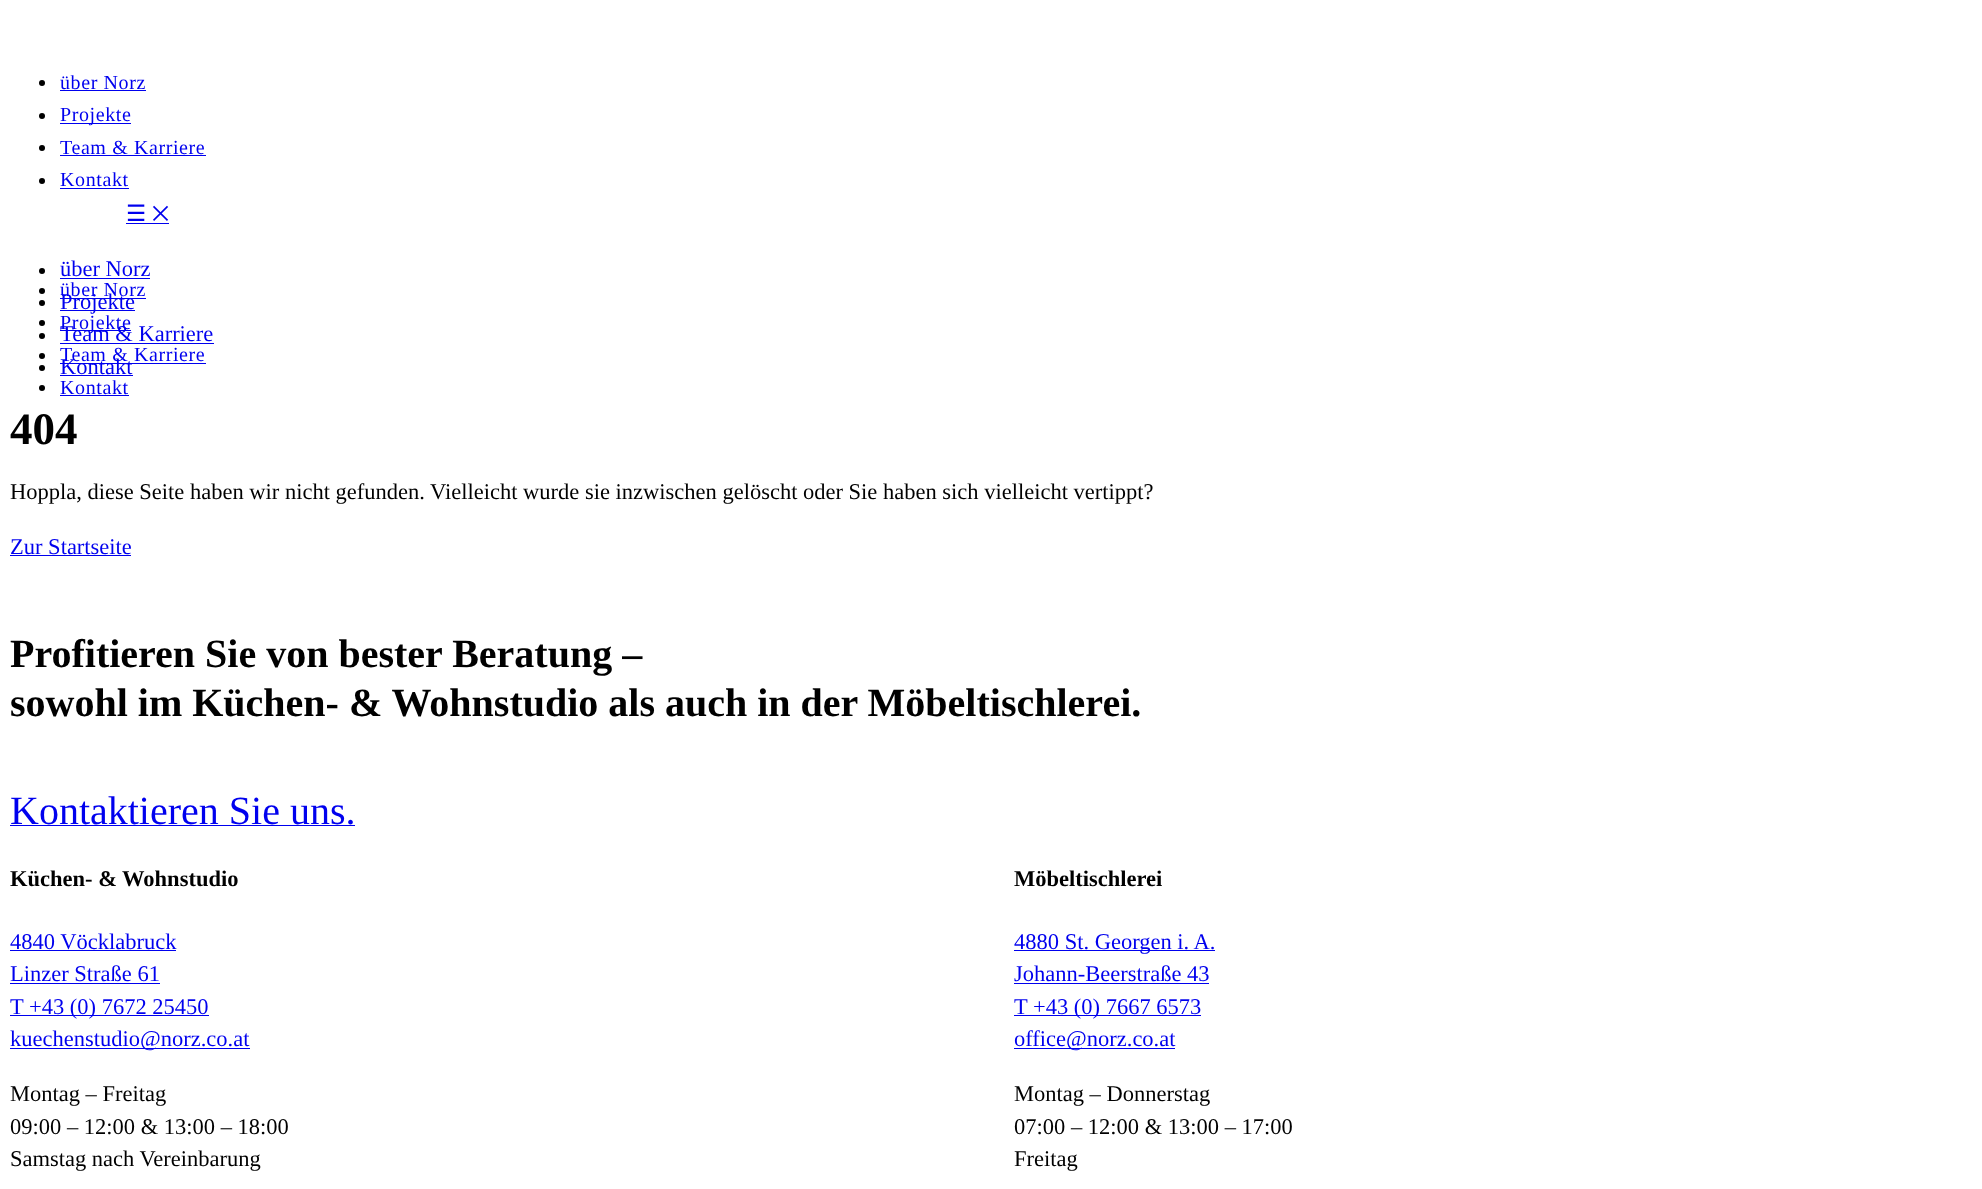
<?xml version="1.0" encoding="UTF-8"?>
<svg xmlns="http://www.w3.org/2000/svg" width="1982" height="1189">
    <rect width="100%" height="100%" fill="#FFFFFF"/>
    <circle cx="42" cy="83" r="3" fill="#000000"/>
    <text x="60" y="89" font-family="Liberation Serif" font-size="20" letter-spacing="0.6" fill="#0000EE">über Norz</text>
    <rect x="60" y="90" width="86" height="1" fill="#0000EE"/>
    <circle cx="42" cy="116" r="3" fill="#000000"/>
    <rect x="60" y="123" width="71" height="1" fill="#0000EE"/>
    <text x="60" y="121" font-family="Liberation Serif" font-size="20" letter-spacing="0.6" fill="#0000EE">Projekte</text>
    <circle cx="42" cy="148" r="3" fill="#000000"/>
    <text x="60" y="154" font-family="Liberation Serif" font-size="20" letter-spacing="0.6" fill="#0000EE">Team &amp; Karriere</text>
    <rect x="60" y="155" width="146" height="1" fill="#0000EE"/>
    <circle cx="42" cy="181" r="3" fill="#000000"/>
    <text x="60" y="186" font-family="Liberation Serif" font-size="20" letter-spacing="0.6" fill="#0000EE">Kontakt</text>
    <rect x="60" y="188" width="69" height="1" fill="#0000EE"/>
    <circle cx="42" cy="291" r="3" fill="#000000"/>
    <text x="60" y="296" font-family="Liberation Serif" font-size="20" letter-spacing="0.6" fill="#0000EE">über Norz</text>
    <rect x="60" y="298" width="86" height="1" fill="#0000EE"/>
    <circle cx="42" cy="323" r="3" fill="#000000"/>
    <rect x="60" y="330" width="71" height="1" fill="#0000EE"/>
    <text x="60" y="329" font-family="Liberation Serif" font-size="20" letter-spacing="0.6" fill="#0000EE">Projekte</text>
    <circle cx="42" cy="356" r="3" fill="#000000"/>
    <text x="60" y="361" font-family="Liberation Serif" font-size="20" letter-spacing="0.6" fill="#0000EE">Team &amp; Karriere</text>
    <rect x="60" y="363" width="146" height="1" fill="#0000EE"/>
    <circle cx="42" cy="388" r="3" fill="#000000"/>
    <text x="60" y="394" font-family="Liberation Serif" font-size="20" letter-spacing="0.6" fill="#0000EE">Kontakt</text>
    <rect x="60" y="395" width="69" height="1" fill="#0000EE"/>
    <text x="126" y="221" font-family="DejaVu Sans" font-size="22.5" fill="#0000EE">☰</text>
    <text x="152" y="221" font-family="Noto Serif Tibetan" font-size="22.5" fill="#0000EE">྾</text>
    <rect x="126" y="223" width="43" height="1" fill="#0000EE"/>
    <circle cx="42" cy="271" r="3" fill="#000000"/>
    <text x="60" y="276" font-family="Liberation Serif" font-size="22.5" fill="#0000EE">über Norz</text>
    <rect x="60" y="278" width="90" height="1" fill="#0000EE"/>
    <circle cx="42" cy="303" r="3" fill="#000000"/>
    <rect x="60" y="310" width="75" height="1" fill="#0000EE"/>
    <text x="60" y="309" font-family="Liberation Serif" font-size="22.5" fill="#0000EE">Projekte</text>
    <circle cx="42" cy="336" r="3" fill="#000000"/>
    <text x="60" y="341" font-family="Liberation Serif" font-size="22.5" fill="#0000EE">Team &amp; Karriere</text>
    <rect x="60" y="343" width="154" height="1" fill="#0000EE"/>
    <circle cx="42" cy="368" r="3" fill="#000000"/>
    <text x="60" y="374" font-family="Liberation Serif" font-size="22.5" fill="#0000EE">Kontakt</text>
    <rect x="60" y="375" width="73" height="1" fill="#0000EE"/>
    <text x="10" y="444" font-family="Liberation Serif" font-size="45" font-weight="700" fill="#000000">404</text>
    <text x="10" y="499" font-family="Liberation Serif" font-size="22.5" fill="#000000">Hoppla, diese Seite haben wir nicht gefunden. Vielleicht wurde sie inzwischen gelöscht oder Sie haben sich vielleicht vertippt?</text>
    <text x="10" y="554" font-family="Liberation Serif" font-size="22.5" fill="#0000EE">Zur Startseite</text>
    <rect x="10" y="555" width="121" height="1" fill="#0000EE"/>
    <text font-family="Liberation Serif" font-size="40" font-weight="700" fill="#000000">
        <tspan x="10" y="667">Profitieren Sie von bester Beratung –</tspan>
        <tspan x="10" y="716">sowohl im Küchen- &amp; Wohnstudio als auch in der Möbeltischlerei.</tspan>
    </text>
    <text x="10" y="824" font-family="Liberation Serif" font-size="40" fill="#0000EE">Kontaktieren Sie uns.</text>
    <rect x="10" y="825" width="345" height="1" fill="#0000EE"/>
    <text x="10" y="886" font-family="Liberation Serif" font-size="22.5" font-weight="700" fill="#000000">Küchen- &amp; Wohnstudio</text>
    <text x="10" y="949" font-family="Liberation Serif" font-size="22.5" fill="#0000EE">4840 Vöcklabruck</text>
    <rect x="10" y="950" width="166" height="1" fill="#0000EE"/>
    <text x="10" y="981" font-family="Liberation Serif" font-size="22.5" fill="#0000EE">Linzer Straße 61</text>
    <rect x="10" y="983" width="150" height="1" fill="#0000EE"/>
    <rect x="10" y="1015" width="199" height="1" fill="#0000EE"/>
    <text x="10" y="1014" font-family="Liberation Serif" font-size="22.5" fill="#0000EE">T +43 (0) 7672 25450</text>
    <rect x="10" y="1048" width="240" height="1" fill="#0000EE"/>
    <text x="10" y="1046" font-family="Liberation Serif" font-size="22.5" fill="#0000EE">kuechenstudio@norz.co.at</text>
    <text font-family="Liberation Serif" font-size="22.5" fill="#000000">
        <tspan x="10" y="1101">Montag – Freitag</tspan>
        <tspan x="10" y="1134">09:00 – 12:00 &amp; 13:00 – 18:00</tspan>
        <tspan x="10" y="1166">Samstag nach Vereinbarung</tspan>
    </text>
    <text x="1014" y="886" font-family="Liberation Serif" font-size="22.5" font-weight="700" fill="#000000">Möbeltischlerei</text>
    <rect x="1014" y="950" width="201" height="1" fill="#0000EE"/>
    <text font-family="Liberation Serif" font-size="22.5" fill="#0000EE">
        <tspan x="1014" y="949">4880 St. Georgen i. A.</tspan>
        <tspan x="1014" y="981">Johann-Beerstraße 43</tspan>
    </text>
    <rect x="1014" y="983" width="195" height="1" fill="#0000EE"/>
    <rect x="1014" y="1015" width="187" height="1" fill="#0000EE"/>
    <text x="1014" y="1014" font-family="Liberation Serif" font-size="22.5" fill="#0000EE">T +43 (0) 7667 6573</text>
    <rect x="1014" y="1048" width="161" height="1" fill="#0000EE"/>
    <text x="1014" y="1046" font-family="Liberation Serif" font-size="22.5" fill="#0000EE">office@norz.co.at</text>
    <text font-family="Liberation Serif" font-size="22.5" fill="#000000">
        <tspan x="1014" y="1101">Montag – Donnerstag</tspan>
        <tspan x="1014" y="1134">07:00 – 12:00 &amp; 13:00 – 17:00</tspan>
        <tspan x="1014" y="1166">Freitag</tspan>
    </text>
</svg>
